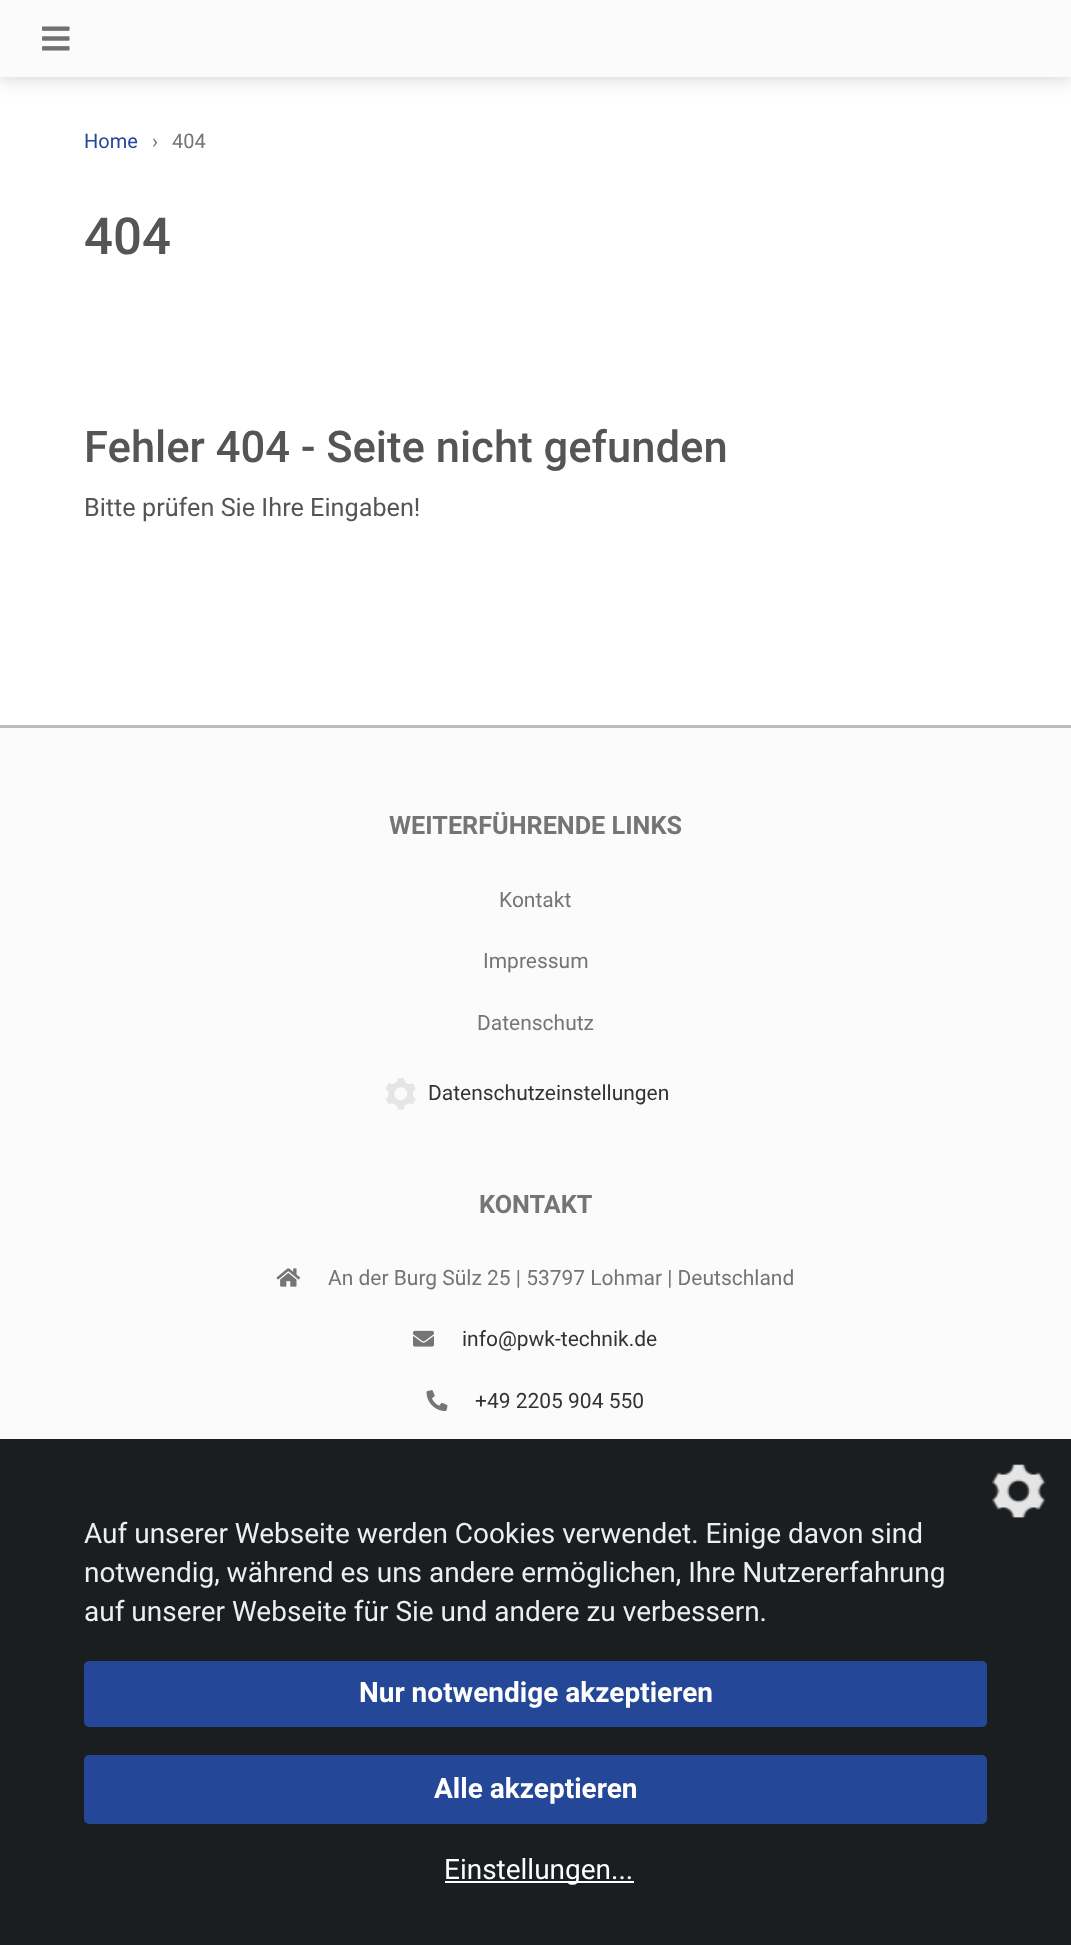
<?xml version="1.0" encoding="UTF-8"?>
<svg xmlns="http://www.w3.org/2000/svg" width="1071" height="1945">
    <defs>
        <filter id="blur1" x="-50%" y="-200%" width="200%" height="500%"><feGaussianBlur stdDeviation="3.5"/></filter>
        <filter id="blur2" x="-50%" y="-200%" width="200%" height="500%"><feGaussianBlur stdDeviation="10.5"/></filter>
    </defs>
    <rect width="100%" height="100%" fill="#FFFFFF"/>
    <rect x="0" y="4" width="1071" height="77" fill="#000000" fill-opacity="0.05" filter="url(#blur1)"/>
    <rect x="0" y="7" width="1071" height="77" fill="#000000" fill-opacity="0.07" filter="url(#blur2)"/>
    <rect x="0" y="0" width="1071" height="77" fill="#FBFBFB"/>
    <image x="42" y="26" width="28" height="25" href="img_01.png"/>
    <text x="84" y="148" font-family="Roboto" font-size="20" fill="#244798">Home</text>
    <text x="152" y="148" font-family="Roboto" font-size="20" fill="#757575">›</text>
    <text x="172" y="148" font-family="Roboto" font-size="20" fill="#757575">404</text>
    <text x="84" y="254" font-family="Roboto" font-size="51" font-weight="500" fill="#555555">404</text>
    <text x="84" y="462" font-family="Roboto" font-size="43.6" font-weight="500" fill="#555555">Fehler 404 - Seite nicht gefunden</text>
    <text x="84" y="516" font-family="Roboto" font-size="25.25" fill="#555555">Bitte prüfen Sie Ihre Eingaben!</text>
    <rect x="0" y="725" width="1071" height="3" fill="#BBBBBB"/>
    <rect x="0" y="728" width="1071" height="711" fill="#FBFBFB"/>
    <text x="389" y="834" font-family="Roboto" font-size="25.25" font-weight="700" fill="#757575">WEITERFÜHRENDE LINKS</text>
    <text x="499" y="907" font-family="Roboto" font-size="21" fill="#757575">Kontakt</text>
    <text x="483" y="968" font-family="Roboto" font-size="21" fill="#757575">Impressum</text>
    <text x="477" y="1030" font-family="Roboto" font-size="21" fill="#757575">Datenschutz</text>
    <image x="385" y="1078" width="31" height="32" href="img_02.png"/>
    <text x="428" y="1100" font-family="Roboto" font-size="21" fill="#333333">Datenschutzeinstellungen</text>
    <text x="479" y="1213" font-family="Roboto" font-size="25.25" font-weight="700" fill="#757575">KONTAKT</text>
    <image x="276" y="1268" width="25" height="19" href="img_03.png"/>
    <text x="328" y="1285" font-family="Roboto" font-size="21" fill="#757575">An der Burg Sülz 25 | 53797 Lohmar | Deutschland</text>
    <image x="413" y="1330" width="21" height="17" href="img_04.png"/>
    <text x="462" y="1346" font-family="Roboto" font-size="21" fill="#333333">info@pwk-technik.de</text>
    <image x="426" y="1390" width="22" height="22" href="img_05.png"/>
    <text x="475" y="1408" font-family="Roboto" font-size="21" fill="#333333">+49 2205 904 550</text>
    <rect x="0" y="1439" width="1071" height="506" fill="#1B1E21"/>
    <image x="991" y="1464" width="55" height="54" href="img_06.png"/>
    <text font-family="Roboto" font-size="28" fill="#EEEEEE">
        <tspan x="84" y="1543">Auf unserer Webseite werden Cookies verwendet. Einige davon sind</tspan>
        <tspan x="84" y="1582">notwendig, während es uns andere ermöglichen, Ihre Nutzererfahrung</tspan>
        <tspan x="84" y="1621">auf unserer Webseite für Sie und andere zu verbessern.</tspan>
    </text>
    <rect x="84" y="1661" width="903" height="66" rx="5" fill="#244798"/>
    <text x="359" y="1702" font-family="Roboto" font-size="28" font-weight="700" fill="#FFFFFF">Nur notwendige akzeptieren</text>
    <rect x="84" y="1755" width="903" height="69" rx="5" fill="#244798"/>
    <text x="434" y="1798" font-family="Roboto" font-size="28" font-weight="700" fill="#FFFFFF">Alle akzeptieren</text>
    <rect x="445" y="1881" width="189" height="2" fill="#FFFFFF"/>
    <text x="444" y="1879" font-family="Roboto" font-size="28" fill="#FFFFFF">Einstellungen...</text>
</svg>
